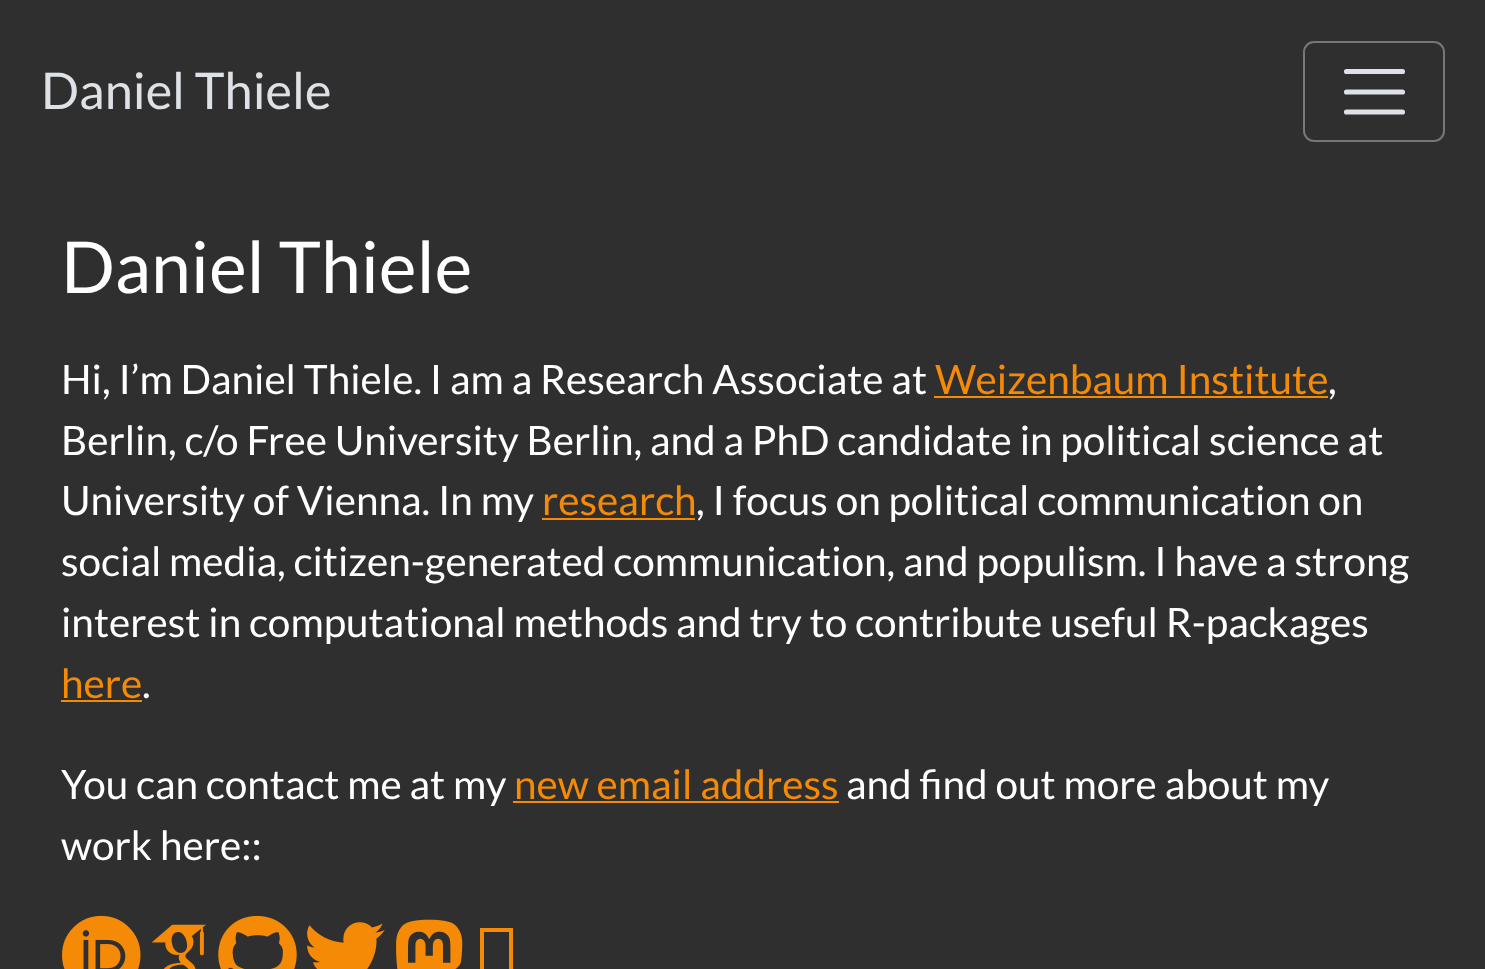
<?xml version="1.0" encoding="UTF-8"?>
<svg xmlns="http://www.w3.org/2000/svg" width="1485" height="969">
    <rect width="100%" height="100%" fill="#2F2F2F"/>
    <text x="41" y="109" font-family="Lato" font-size="50.5" fill="#DEE2E6">Daniel Thiele</text>
    <rect x="1304" y="42" width="140" height="99" rx="10" fill="none" stroke="#757778" stroke-width="2"/>
    <path d="M 1346.5 71.5 H 1402.5 M 1346.5 92 H 1402.5 M 1346.5 112 H 1402.5" fill="none" stroke="#DEE2E6" stroke-width="5.1" stroke-linecap="round"/>
    <text x="61" y="293" font-family="Lato" font-size="71.5" fill="#FFFFFF">Daniel Thiele</text>
    <text x="61" y="394" font-family="Lato" font-size="40.5" fill="#FFFFFF">Hi, I’m Daniel Thiele. I am a Research Associate at</text>
    <text x="935" y="394" font-family="Lato" font-size="40.5" fill="#F58A07">Weizenbaum Institute</text>
    <rect x="934" y="396" width="394" height="2" fill="#F58A07"/>
    <text x="1328" y="394" font-family="Lato" font-size="40.5" fill="#FFFFFF">,</text>
    <text font-family="Lato" font-size="40.5" fill="#FFFFFF">
        <tspan x="61" y="455">Berlin, c/o Free University Berlin, and a PhD candidate in political science at</tspan>
        <tspan x="61" y="515">University of Vienna. In my</tspan>
    </text>
    <text x="542" y="515" font-family="Lato" font-size="40.5" fill="#F58A07">research</text>
    <rect x="542" y="518" width="153" height="2" fill="#F58A07"/>
    <text x="696" y="515" font-family="Lato" font-size="40.5" fill="#FFFFFF">, I focus on political communication on</text>
    <text font-family="Lato" font-size="40.5" fill="#FFFFFF">
        <tspan x="61" y="576">social media, citizen-generated communication, and populism. I have a strong</tspan>
        <tspan x="61" y="637">interest in computational methods and try to contribute useful R-packages</tspan>
    </text>
    <text x="61" y="698" font-family="Lato" font-size="40.5" fill="#F58A07">here</text>
    <rect x="61" y="700" width="81" height="2" fill="#F58A07"/>
    <text x="142" y="698" font-family="Lato" font-size="40.5" fill="#FFFFFF">.</text>
    <text x="61" y="799" font-family="Lato" font-size="40.5" fill="#FFFFFF">You can contact me at my</text>
    <text x="514" y="799" font-family="Lato" font-size="40.5" fill="#F58A07">new email address</text>
    <rect x="513" y="801" width="326" height="2" fill="#F58A07"/>
    <text x="846" y="799" font-family="Lato" font-size="40.5" fill="#FFFFFF">and find out more about my</text>
    <text x="61" y="860" font-family="Lato" font-size="40.5" fill="#FFFFFF">work here::</text>
    <image x="62" y="915" width="79" height="54" href="img_01.png"/>
    <image x="151" y="924" width="55" height="45" href="img_02.png"/>
    <image x="218" y="915" width="79" height="54" href="img_03.png"/>
    <image x="307" y="922" width="78" height="47" href="img_04.png"/>
    <image x="396" y="919" width="67" height="50" href="img_05.png"/>
    <path d="M 480 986 V 928 H 513 V 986 Z M 484 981 H 509 V 932 H 484 Z" fill="#F58A07"/>
</svg>
